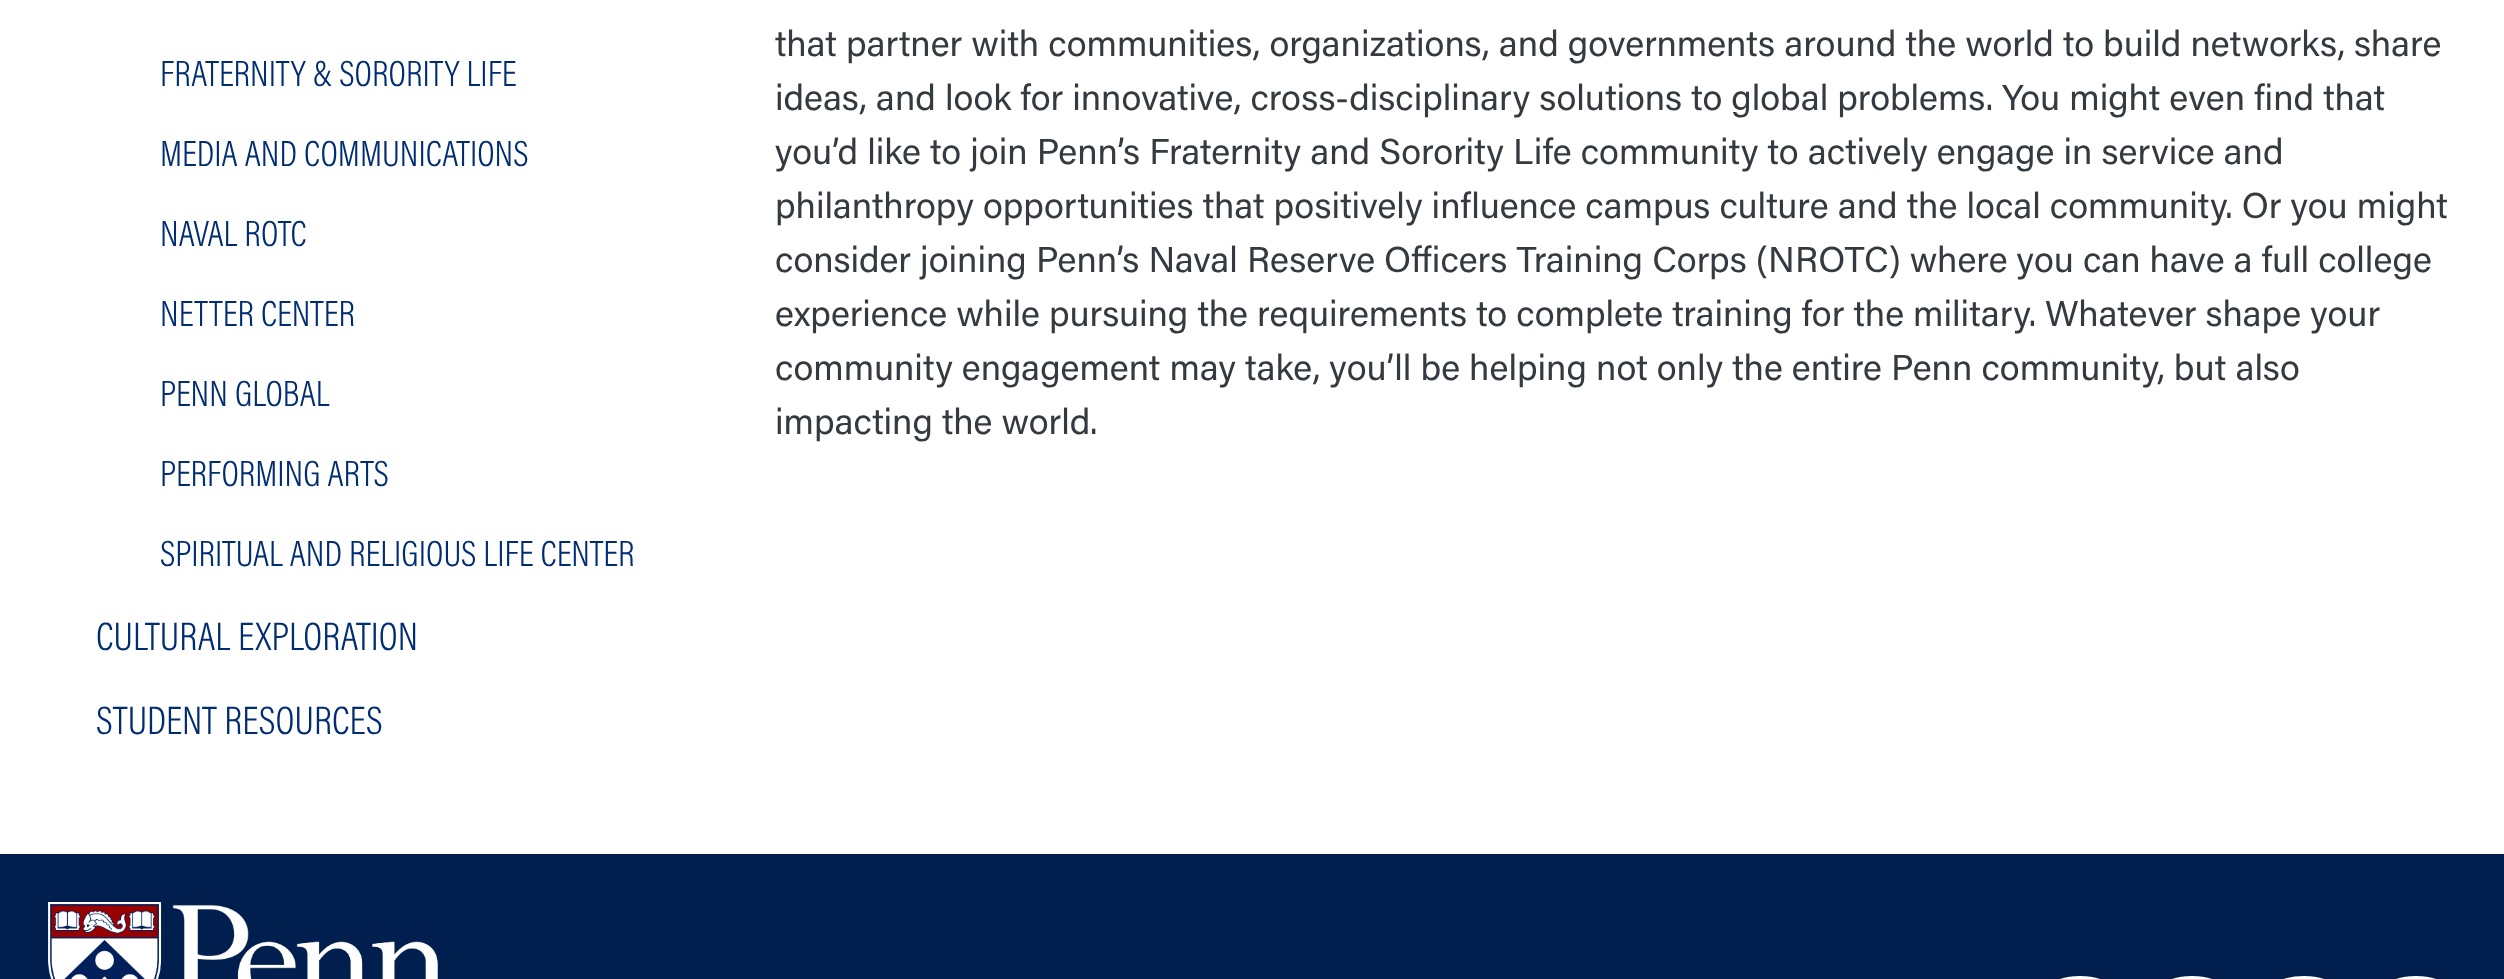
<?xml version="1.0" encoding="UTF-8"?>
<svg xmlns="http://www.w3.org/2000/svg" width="2504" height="979">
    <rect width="100%" height="100%" fill="#FFFFFF"/>
    <text x="160" y="86" font-family="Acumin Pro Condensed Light" font-size="36.75" font-weight="300" fill="#002D72">FRATERNITY &amp; SORORITY LIFE</text>
    <text x="160" y="166" font-family="Acumin Pro Condensed Light" font-size="36.75" font-weight="300" fill="#002D72">MEDIA AND COMMUNICATIONS</text>
    <text x="160" y="246" font-family="Acumin Pro Condensed Light" font-size="36.75" font-weight="300" fill="#002D72">NAVAL ROTC</text>
    <text x="160" y="326" font-family="Acumin Pro Condensed Light" font-size="36.75" font-weight="300" fill="#002D72">NETTER CENTER</text>
    <text x="160" y="406" font-family="Acumin Pro Condensed Light" font-size="36.75" font-weight="300" fill="#002D72">PENN GLOBAL</text>
    <text x="160" y="486" font-family="Acumin Pro Condensed Light" font-size="36.75" font-weight="300" fill="#002D72">PERFORMING ARTS</text>
    <text x="160" y="566" font-family="Acumin Pro Condensed Light" font-size="36.75" font-weight="300" fill="#002D72">SPIRITUAL AND RELIGIOUS LIFE CENTER</text>
    <text x="96" y="650" font-family="Acumin Pro Condensed Light" font-size="40" font-weight="300" fill="#002D72">CULTURAL EXPLORATION</text>
    <text x="96" y="734" font-family="Acumin Pro Condensed Light" font-size="40" font-weight="300" fill="#002D72">STUDENT RESOURCES</text>
    <text font-family="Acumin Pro" font-size="36" fill="#343A40">
        <tspan x="775" y="56">that partner with communities, organizations, and governments around the world to build networks, share</tspan>
        <tspan x="775" y="110">ideas, and look for innovative, cross-disciplinary solutions to global problems. You might even find that</tspan>
        <tspan x="775" y="164">you’d like to join Penn’s Fraternity and Sorority Life community to actively engage in service and</tspan>
        <tspan x="775" y="218">philanthropy opportunities that positively influence campus culture and the local community. Or you might</tspan>
        <tspan x="775" y="272">consider joining Penn’s Naval Reserve Officers Training Corps (NROTC) where you can have a full college</tspan>
        <tspan x="775" y="326">experience while pursuing the requirements to complete training for the military. Whatever shape your</tspan>
        <tspan x="775" y="380">community engagement may take, you’ll be helping not only the entire Penn community, but also</tspan>
        <tspan x="775" y="434">impacting the world.</tspan>
    </text>
    <rect x="0" y="854" width="2504" height="125" fill="#001F4E"/>
    <image x="48" y="902" width="390" height="77" href="img_01.png"/>
    <rect x="2041" y="977" width="78" height="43" rx="39" fill="#FFFFFF" stroke="#FFFFFF" stroke-width="2"/>
    <rect x="2153" y="977" width="78" height="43" rx="39" fill="#FFFFFF" stroke="#FFFFFF" stroke-width="2"/>
    <rect x="2265" y="977" width="78" height="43" rx="39" fill="#FFFFFF" stroke="#FFFFFF" stroke-width="2"/>
    <rect x="2377" y="977" width="78" height="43" rx="39" fill="#FFFFFF" stroke="#FFFFFF" stroke-width="2"/>
</svg>
